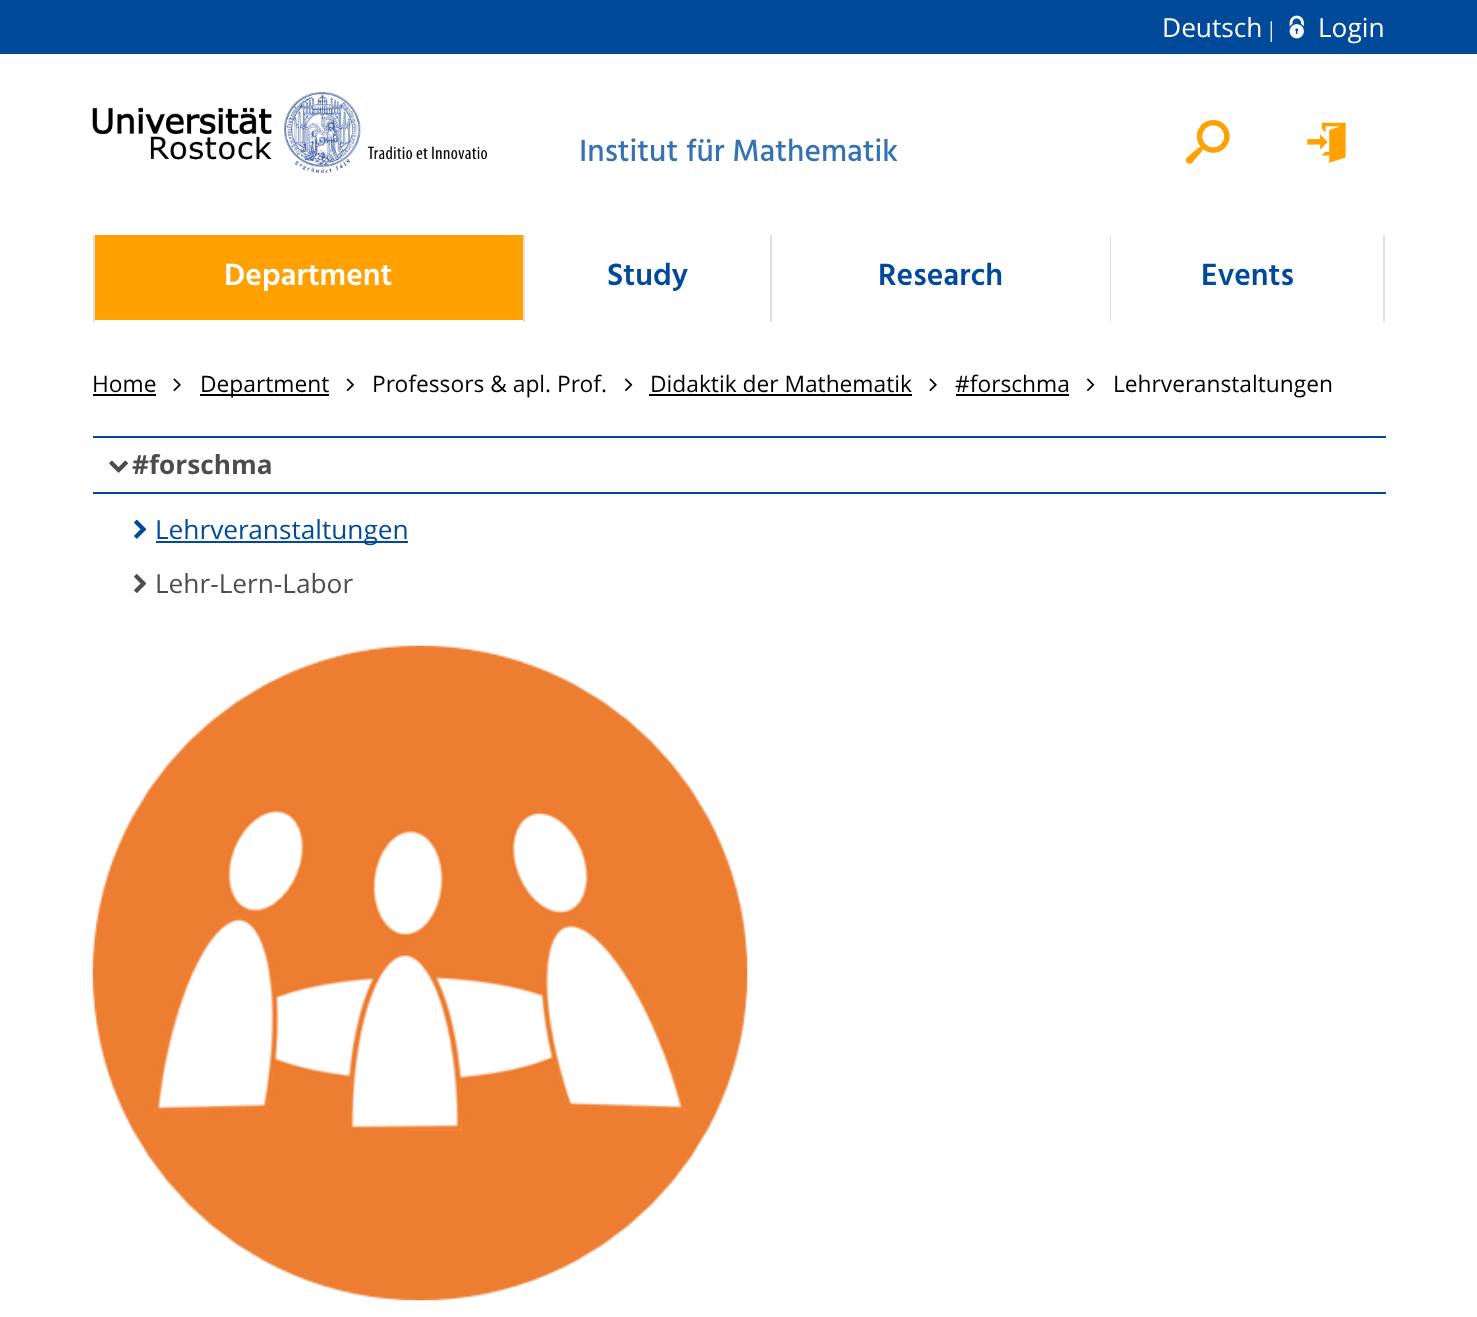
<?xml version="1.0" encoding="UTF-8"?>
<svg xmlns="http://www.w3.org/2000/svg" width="1477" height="1317">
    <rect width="100%" height="100%" fill="#FFFFFF"/>
    <rect x="0" y="0" width="1477" height="54" fill="#004A99"/>
    <text x="1162" y="37" font-family="Open Sans" font-size="26.25" fill="#FFFFFF">Deutsch</text>
    <text x="1269" y="37" font-family="Liberation Serif" font-size="22.75" fill="#FFFFFF">|</text>
    <image x="1289" y="15" width="15" height="24" href="img_01.png"/>
    <text x="1318" y="37" font-family="Open Sans" font-size="26.25" fill="#FFFFFF">Login</text>
    <image x="92" y="92" width="395" height="81" href="img_02.png"/>
    <text x="579" y="161" font-family="Hind" font-size="31.5" font-weight="500" fill="#3672B3">Institut für Mathematik</text>
    <image x="1185" y="120" width="45" height="44" href="img_03.png"/>
    <image x="1307" y="122" width="39" height="41" href="img_04.png"/>
    <rect x="93" y="235" width="2" height="87" fill="#DFDFDF"/>
    <rect x="95" y="235" width="428" height="85" fill="#FFA100"/>
    <text x="224" y="285" font-family="Hind" font-size="31.5" font-weight="600" fill="#FFFFFF">Department</text>
    <rect x="523" y="235" width="2" height="87" fill="#DFDFDF"/>
    <text x="607" y="285" font-family="Hind" font-size="31.5" font-weight="600" fill="#004A99">Study</text>
    <rect x="770" y="235" width="2" height="87" fill="#DFDFDF"/>
    <text x="878" y="285" font-family="Hind" font-size="31.5" font-weight="600" fill="#004A99">Research</text>
    <rect x="1383" y="235" width="2" height="87" fill="#DFDFDF"/>
    <rect x="1110" y="235" width="1" height="87" fill="#DFDFDF"/>
    <text x="1201" y="285" font-family="Hind" font-size="31.5" font-weight="600" fill="#004A99">Events</text>
    <text x="92" y="392" font-family="Open Sans" font-size="22.75" fill="#000000">Home</text>
    <rect x="93" y="394" width="63" height="2" fill="#000000"/>
    <image x="173" y="378" width="8" height="14" href="img_05.png"/>
    <rect x="200" y="394" width="129" height="2" fill="#000000"/>
    <text x="200" y="392" font-family="Open Sans" font-size="22.75" fill="#000000">Department</text>
    <image x="346" y="378" width="8" height="14" href="img_06.png"/>
    <text x="372" y="392" font-family="Open Sans" font-size="22.75" fill="#000000">Professors &amp; apl. Prof.</text>
    <image x="625" y="378" width="8" height="14" href="img_07.png"/>
    <text x="650" y="392" font-family="Open Sans" font-size="22.75" fill="#000000">Didaktik der Mathematik</text>
    <rect x="649" y="394" width="263" height="2" fill="#000000"/>
    <image x="929" y="378" width="8" height="14" href="img_05.png"/>
    <text x="955" y="392" font-family="Open Sans" font-size="22.75" fill="#000000">#forschma</text>
    <rect x="956" y="394" width="113" height="2" fill="#000000"/>
    <image x="1087" y="378" width="8" height="14" href="img_07.png"/>
    <text x="1113" y="392" font-family="Open Sans" font-size="22.75" fill="#000000">Lehrveranstaltungen</text>
    <rect x="93" y="436" width="1293" height="2" fill="#004A99"/>
    <rect x="93" y="492" width="1293" height="2" fill="#004A99"/>
    <image x="109" y="460" width="19" height="13" href="img_08.png"/>
    <text x="132" y="474" font-family="Open Sans" font-size="26.25" font-weight="700" fill="#4D4D4B">#forschma</text>
    <image x="134" y="519" width="13" height="20" href="img_09.png"/>
    <rect x="156" y="541" width="252" height="2" fill="#004A99"/>
    <text x="155" y="539" font-family="Open Sans" font-size="26.25" fill="#004A99">Lehrveranstaltungen</text>
    <image x="134" y="574" width="13" height="19" href="img_10.png"/>
    <text x="155" y="593" font-family="Open Sans" font-size="26.25" fill="#4D4D4B">Lehr-Lern-Labor</text>
    <image x="92" y="645" width="656" height="656" href="img_11.png"/>
</svg>
